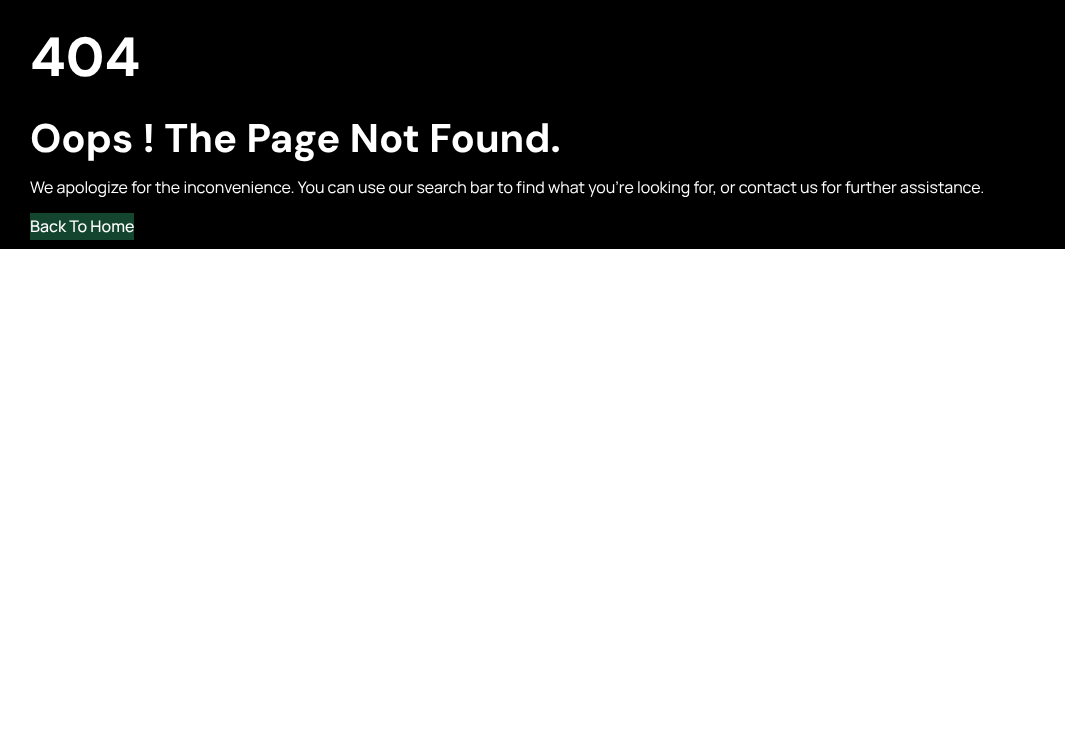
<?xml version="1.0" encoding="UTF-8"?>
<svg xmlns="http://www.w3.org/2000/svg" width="1065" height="746">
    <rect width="100%" height="100%" fill="#FFFFFF"/>
    <rect x="0" y="0" width="1065" height="249" fill="#000000"/>
    <text x="30" y="76" font-family="DM Sans" font-size="55" font-weight="700" fill="#FFFFFF">404</text>
    <text x="30" y="152" font-family="DM Sans" font-size="40" font-weight="700" fill="#FFFFFF">Oops ! The Page Not Found.</text>
    <text x="30" y="193" font-family="Manrope" font-size="16" fill="#FFFFFF">We apologize for the inconvenience. You can use our search bar to find what you're looking for, or contact us for further assistance.</text>
    <rect x="30" y="213" width="104" height="27" fill="#14452F"/>
    <text x="30" y="232" font-family="Manrope" font-size="16" font-weight="500" fill="#FFFFFF">Back To Home</text>
</svg>
